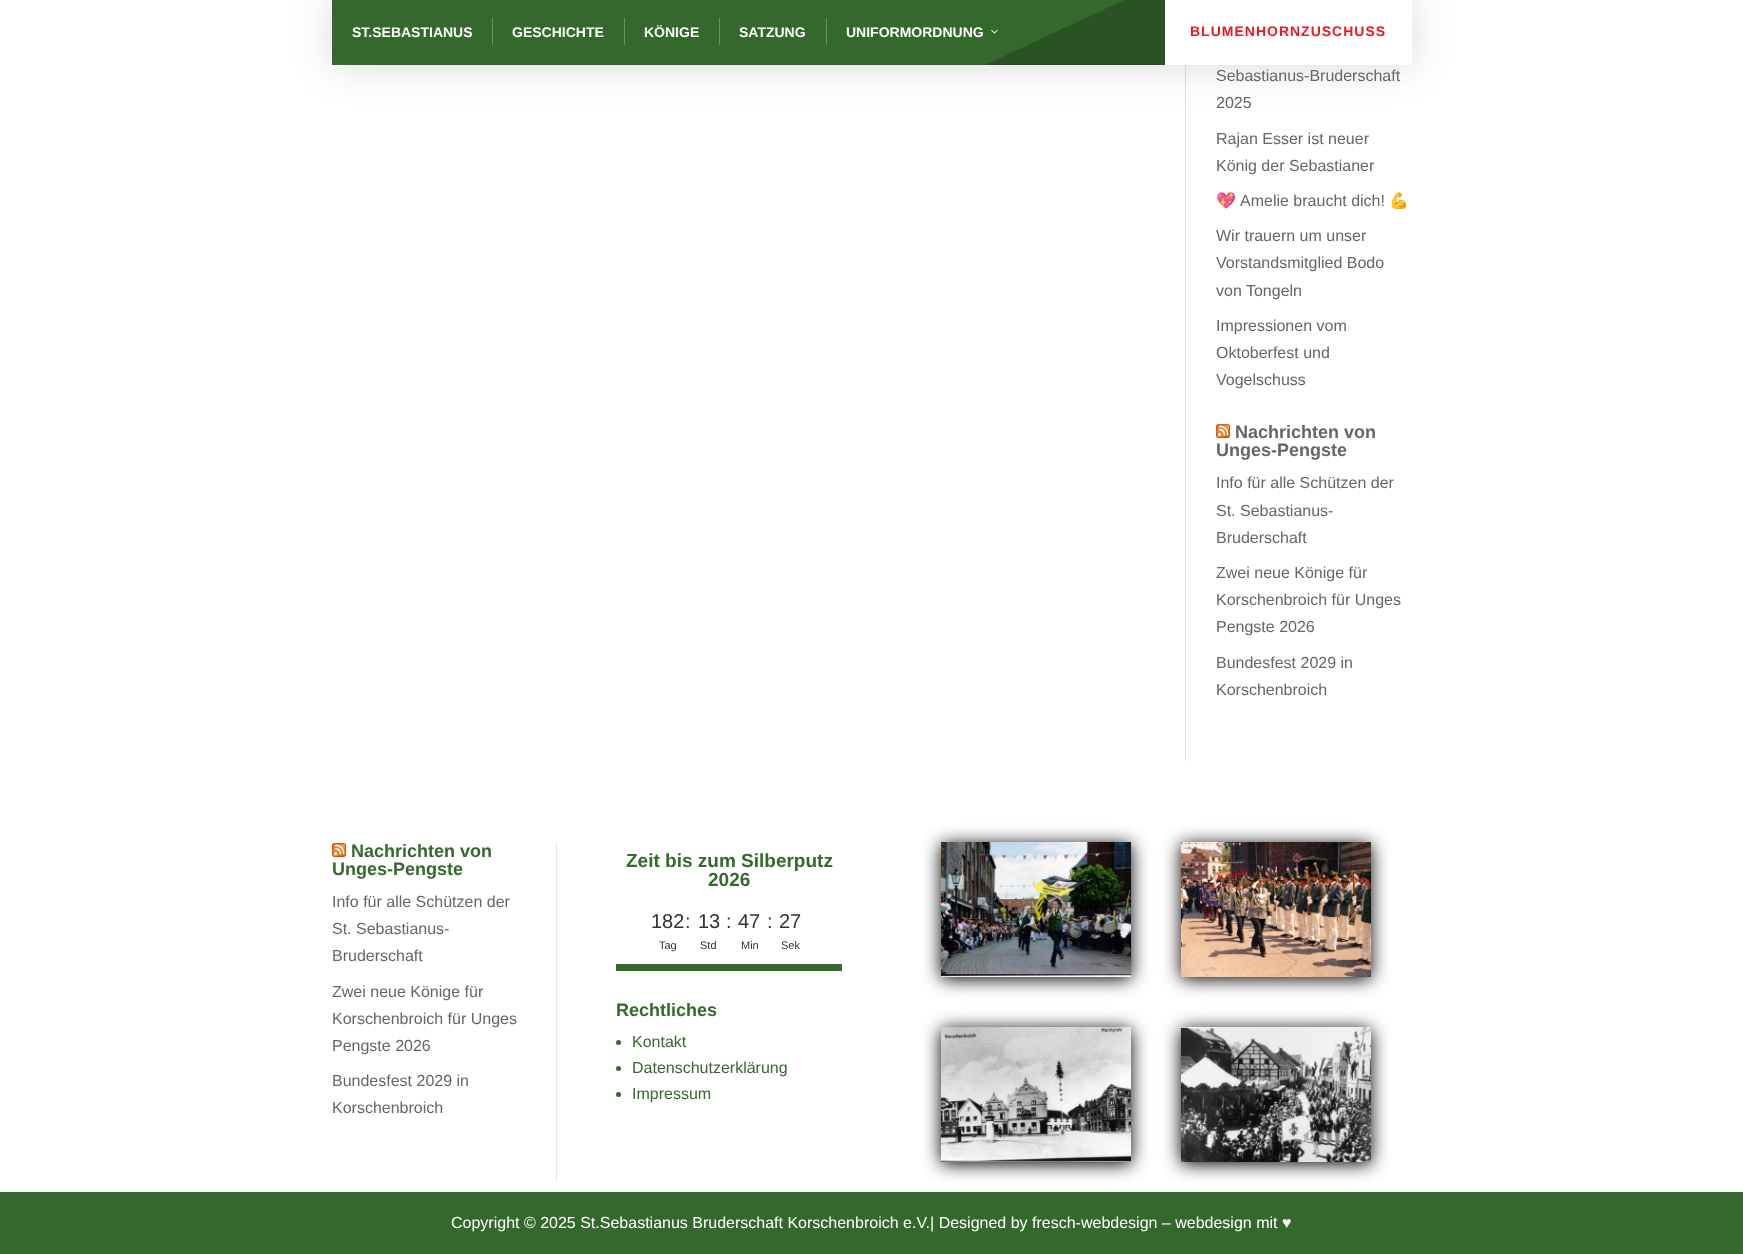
<?xml version="1.0" encoding="UTF-8"?>
<svg xmlns="http://www.w3.org/2000/svg" width="1743" height="1254">
    <defs>
        <filter id="blur1" x="-50%" y="-200%" width="200%" height="500%"><feGaussianBlur stdDeviation="21"/></filter>
        <linearGradient id="g1" gradientUnits="userSpaceOnUse" x1="763" y1="-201" x2="981" y2="266"><stop offset="0.65" stop-color="#35682D"/><stop offset="0.65" stop-color="#2A5324"/></linearGradient>
        <filter id="blur2" x="-50%" y="-200%" width="200%" height="500%"><feGaussianBlur stdDeviation="9"/></filter>
    </defs>
    <rect width="100%" height="100%" fill="#35682D"/>
    <rect x="0" y="0" width="1743" height="1192" fill="#FFFFFF"/>
    <rect x="1185" y="65" width="1" height="696" fill="#E2E2E2"/>
    <rect x="332" y="0" width="1080" height="65" fill="#000000" fill-opacity="0.15" filter="url(#blur1)"/>
    <rect x="332" y="0" width="833" height="65" fill="url(#g1)"/>
    <text x="352" y="37" font-family="Liberation Sans" font-size="14" font-weight="700" fill="#FFFFFF">ST.SEBASTIANUS</text>
    <rect x="492" y="18" width="1" height="27" fill="#688E62"/>
    <text x="512" y="37" font-family="Liberation Sans" font-size="14" font-weight="700" fill="#FFFFFF">GESCHICHTE</text>
    <rect x="624" y="18" width="1" height="27" fill="#688E62"/>
    <text x="644" y="37" font-family="Liberation Sans" font-size="14" font-weight="700" fill="#FFFFFF">KÖNIGE</text>
    <rect x="719" y="18" width="1" height="27" fill="#688E62"/>
    <text x="739" y="37" font-family="Liberation Sans" font-size="14" font-weight="700" fill="#FFFFFF">SATZUNG</text>
    <rect x="826" y="18" width="1" height="27" fill="#688E62"/>
    <text x="846" y="37" font-family="Liberation Sans" font-size="14" font-weight="700" fill="#FFFFFF">UNIFORMORDNUNG</text>
    <image x="991" y="29" width="7" height="5" href="img_01.png"/>
    <rect x="1165" y="0" width="247" height="65" fill="#FFFFFF"/>
    <text x="1190" y="36" font-family="Liberation Sans" font-size="14" font-weight="700" letter-spacing="1" fill="#E51B23">BLUMENHORNZUSCHUSS</text>
    <text font-family="Liberation Sans" font-size="16" fill="#666666">
        <tspan x="1216" y="81">Sebastianus-Bruderschaft</tspan>
        <tspan x="1216" y="108">2025</tspan>
    </text>
    <text font-family="Liberation Sans" font-size="16" fill="#666666">
        <tspan x="1216" y="144">Rajan Esser ist neuer</tspan>
        <tspan x="1216" y="171">König der Sebastianer</tspan>
    </text>
    <text x="1216" y="206" font-family="Noto Color Emoji" font-size="16" fill="#666666">💖</text>
    <text x="1240" y="206" font-family="Liberation Sans" font-size="16" fill="#666666">Amelie braucht dich!</text>
    <text x="1389" y="206" font-family="Noto Color Emoji" font-size="16" fill="#666666">💪</text>
    <text font-family="Liberation Sans" font-size="16" fill="#666666">
        <tspan x="1216" y="241">Wir trauern um unser</tspan>
        <tspan x="1216" y="268">Vorstandsmitglied Bodo</tspan>
        <tspan x="1216" y="296">von Tongeln</tspan>
    </text>
    <text font-family="Liberation Sans" font-size="16" fill="#666666">
        <tspan x="1216" y="331">Impressionen vom</tspan>
        <tspan x="1216" y="358">Oktoberfest und</tspan>
        <tspan x="1216" y="385">Vogelschuss</tspan>
    </text>
    <image x="1216" y="424" width="14" height="14" href="img_02.png"/>
    <text x="1235" y="438" font-family="Liberation Sans" font-size="18" font-weight="700" fill="#666666">Nachrichten von</text>
    <text x="1216" y="456" font-family="Liberation Sans" font-size="18" font-weight="700" fill="#666666">Unges-Pengste</text>
    <text font-family="Liberation Sans" font-size="16" fill="#666666">
        <tspan x="1216" y="488">Info für alle Schützen der</tspan>
        <tspan x="1216" y="516">St. Sebastianus-</tspan>
        <tspan x="1216" y="543">Bruderschaft</tspan>
    </text>
    <text font-family="Liberation Sans" font-size="16" fill="#666666">
        <tspan x="1216" y="578">Zwei neue Könige für</tspan>
        <tspan x="1216" y="605">Korschenbroich für Unges</tspan>
        <tspan x="1216" y="632">Pengste 2026</tspan>
    </text>
    <text font-family="Liberation Sans" font-size="16" fill="#666666">
        <tspan x="1216" y="668">Bundesfest 2029 in</tspan>
        <tspan x="1216" y="695">Korschenbroich</tspan>
    </text>
    <rect x="556" y="842" width="1" height="339" fill="#E6E6E6"/>
    <image x="332" y="843" width="14" height="14" href="img_02.png"/>
    <text x="351" y="857" font-family="Liberation Sans" font-size="18" font-weight="700" fill="#35692D">Nachrichten von</text>
    <text x="332" y="875" font-family="Liberation Sans" font-size="18" font-weight="700" fill="#35692D">Unges-Pengste</text>
    <text font-family="Liberation Sans" font-size="16" fill="#666666">
        <tspan x="332" y="907">Info für alle Schützen der</tspan>
        <tspan x="332" y="934">St. Sebastianus-</tspan>
        <tspan x="332" y="961">Bruderschaft</tspan>
    </text>
    <text font-family="Liberation Sans" font-size="16" fill="#666666">
        <tspan x="332" y="997">Zwei neue Könige für</tspan>
        <tspan x="332" y="1024">Korschenbroich für Unges</tspan>
        <tspan x="332" y="1051">Pengste 2026</tspan>
    </text>
    <text font-family="Liberation Sans" font-size="16" fill="#666666">
        <tspan x="332" y="1086">Bundesfest 2029 in</tspan>
        <tspan x="332" y="1113">Korschenbroich</tspan>
    </text>
    <rect x="616" y="964" width="226" height="7" fill="#35692D"/>
    <text x="626" y="867" font-family="Liberation Sans" font-size="19" font-weight="700" fill="#35692D">Zeit bis zum Silberputz</text>
    <text x="708" y="886" font-family="Liberation Sans" font-size="19" font-weight="700" fill="#35692D">2026</text>
    <text x="651" y="928" font-family="Liberation Sans" font-size="20" fill="#333333">182</text>
    <text x="659" y="949" font-family="Liberation Sans" font-size="11" fill="#333333">Tag</text>
    <text x="685" y="928" font-family="Liberation Sans" font-size="20" fill="#333333">:</text>
    <text x="698" y="928" font-family="Liberation Sans" font-size="20" fill="#333333">13</text>
    <text x="700" y="949" font-family="Liberation Sans" font-size="11" fill="#333333">Std</text>
    <text x="726" y="928" font-family="Liberation Sans" font-size="20" fill="#333333">:</text>
    <text x="738" y="928" font-family="Liberation Sans" font-size="20" fill="#333333">47</text>
    <text x="741" y="949" font-family="Liberation Sans" font-size="11" fill="#333333">Min</text>
    <text x="767" y="928" font-family="Liberation Sans" font-size="20" fill="#333333">:</text>
    <text x="779" y="928" font-family="Liberation Sans" font-size="20" fill="#333333">27</text>
    <text x="781" y="949" font-family="Liberation Sans" font-size="11" fill="#333333">Sek</text>
    <text x="616" y="1016" font-family="Liberation Sans" font-size="18" font-weight="700" fill="#35692D">Rechtliches</text>
    <circle cx="618.5" cy="1042.5" r="2.5" fill="#35692D"/>
    <text x="632" y="1047" font-family="Liberation Sans" font-size="16" fill="#35692D">Kontakt</text>
    <circle cx="618.5" cy="1068.5" r="2.5" fill="#35692D"/>
    <text x="632" y="1073" font-family="Liberation Sans" font-size="16" fill="#35692D">Datenschutzerklärung</text>
    <circle cx="618.5" cy="1094.5" r="2.5" fill="#35692D"/>
    <text x="632" y="1099" font-family="Liberation Sans" font-size="16" fill="#35692D">Impressum</text>
    <rect x="941" y="844" width="190" height="135" fill="#000000" filter="url(#blur2)"/>
    <image x="941" y="842" width="190" height="135" href="img_03.png"/>
    <rect x="1181" y="844" width="190" height="135" fill="#000000" filter="url(#blur2)"/>
    <image x="1181" y="842" width="190" height="135" href="img_04.png"/>
    <rect x="941" y="1029" width="190" height="135" fill="#000000" filter="url(#blur2)"/>
    <image x="941" y="1027" width="190" height="135" href="img_05.png"/>
    <rect x="1181" y="1029" width="190" height="135" fill="#000000" filter="url(#blur2)"/>
    <image x="1181" y="1027" width="190" height="135" href="img_06.png"/>
    <text x="451" y="1228" font-family="Liberation Sans" font-size="16" fill="#FFFFFF">Copyright © 2025 St.Sebastianus Bruderschaft Korschenbroich e.V.| Designed by fresch-webdesign – webdesign mit ♥</text>
</svg>
